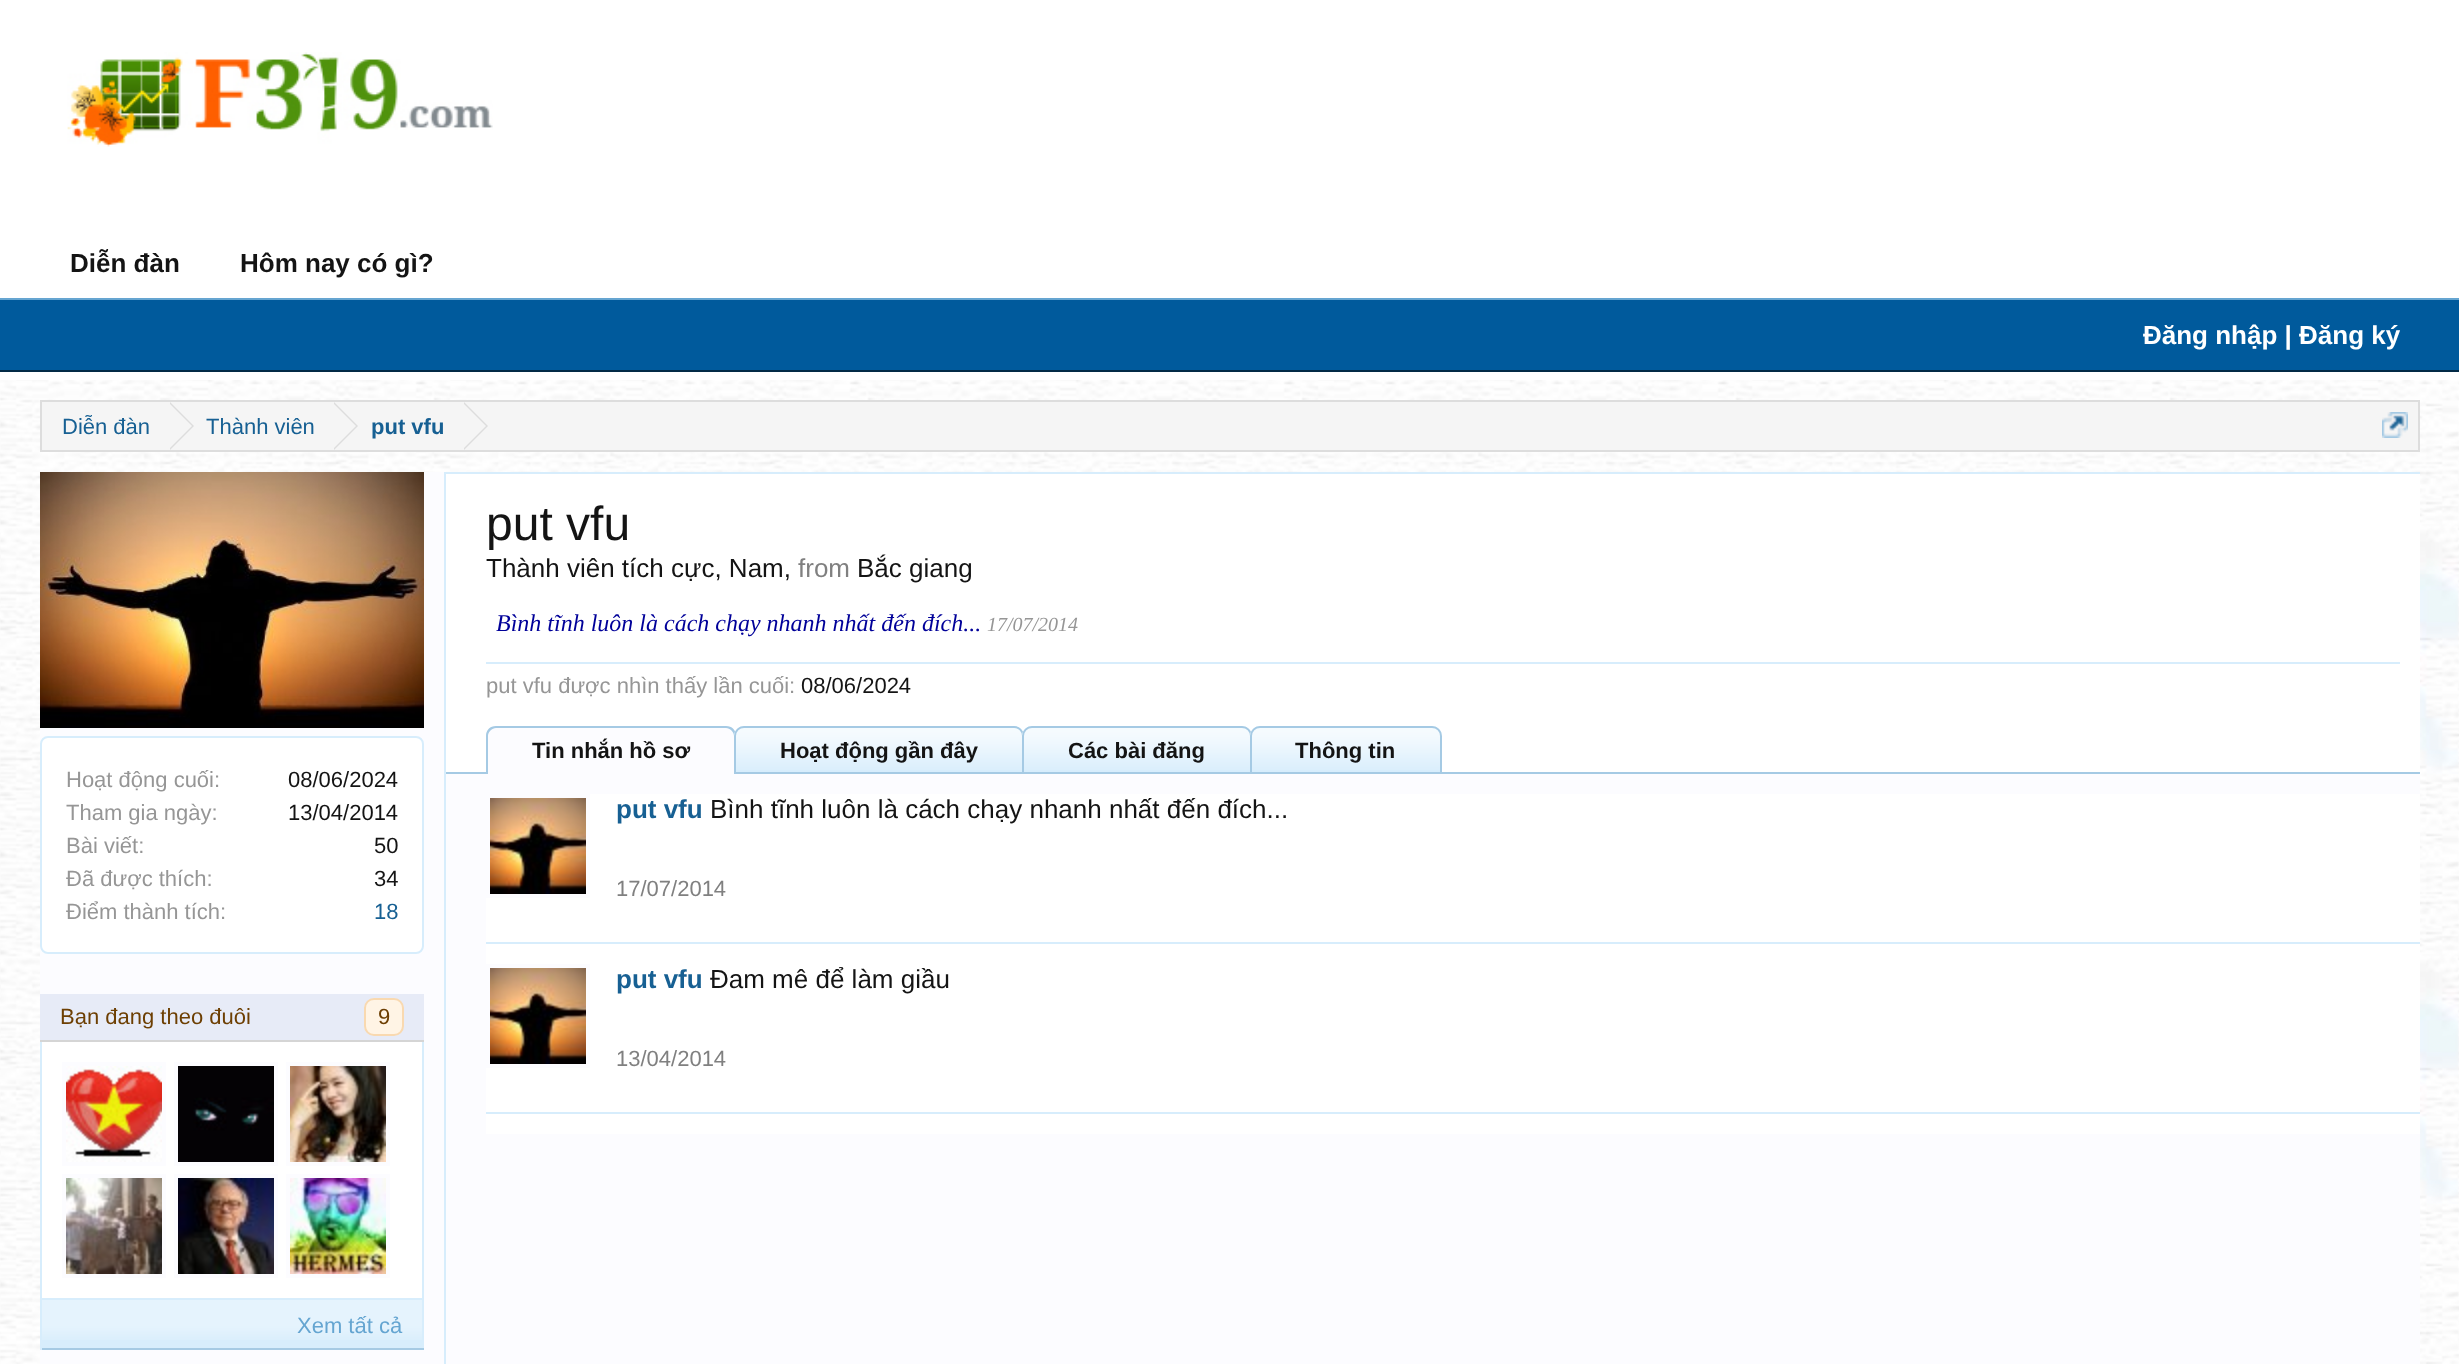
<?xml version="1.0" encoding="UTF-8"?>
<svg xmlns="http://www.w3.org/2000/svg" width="2459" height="1364">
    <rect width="100%" height="100%" fill="#FFFFFF"/>
    <image x="0" y="380" width="2459" height="984" href="img_01.png"/>
    <image x="67" y="52" width="426" height="95" href="img_02.png"/>
    <text x="70" y="272" font-family="Liberation Sans" font-size="26" font-weight="700" fill="#141414">Diễn đàn</text>
    <text x="240" y="272" font-family="Liberation Sans" font-size="26" font-weight="700" fill="#141414">Hôm nay có gì?</text>
    <rect x="0" y="300" width="2459" height="70" fill="#005A9C"/>
    <text x="2143" y="344" font-family="Liberation Sans" font-size="26" font-weight="700" fill="#FFFFFF">Đăng nhập | Đăng ký</text>
    <rect x="0" y="298" width="2459" height="2" fill="#65A5D1"/>
    <rect x="0" y="370" width="2459" height="2" fill="#032A46"/>
    <rect x="41" y="401" width="2378" height="50" fill="#F5F5F5" stroke="#DDDDDD" stroke-width="2"/>
    <text x="62" y="434" font-family="Liberation Sans" font-size="22" fill="#176093">Diễn đàn</text>
    <path d="M 170 450 V 402 L 194 426 Z" fill="#DDDDDD"/>
    <path d="M 168 450 V 402 L 192 426 Z" fill="#F5F5F5"/>
    <text x="206" y="434" font-family="Liberation Sans" font-size="22" fill="#176093">Thành viên</text>
    <path d="M 334 450 V 402 L 358 426 Z" fill="#DDDDDD"/>
    <path d="M 332 450 V 402 L 356 426 Z" fill="#F5F5F5"/>
    <text x="371" y="434" font-family="Liberation Sans" font-size="22" font-weight="700" fill="#176093">put vfu</text>
    <path d="M 464 450 V 402 L 488 426 Z" fill="#DDDDDD"/>
    <path d="M 462 450 V 402 L 486 426 Z" fill="#F5F5F5"/>
    <image x="2382" y="412" width="26" height="26" href="img_03.png"/>
    <rect x="40" y="472" width="2380" height="892" fill="#FCFCFF"/>
    <rect x="444" y="472" width="2" height="892" fill="#D7EDFC"/>
    <image x="40" y="472" width="384" height="256" href="img_04.png"/>
    <rect x="41" y="737" width="382" height="216" rx="7" fill="#FFFFFF" stroke="#D7EDFC" stroke-width="2"/>
    <text x="66" y="787" font-family="Liberation Sans" font-size="22" fill="#969696">Hoạt động cuối:</text>
    <text x="288" y="787" font-family="Liberation Sans" font-size="22" fill="#141414">08/06/2024</text>
    <text x="66" y="820" font-family="Liberation Sans" font-size="22" fill="#969696">Tham gia ngày:</text>
    <text x="288" y="820" font-family="Liberation Sans" font-size="22" fill="#141414">13/04/2014</text>
    <text x="66" y="853" font-family="Liberation Sans" font-size="22" fill="#969696">Bài viết:</text>
    <text x="374" y="853" font-family="Liberation Sans" font-size="22" fill="#141414">50</text>
    <text x="66" y="886" font-family="Liberation Sans" font-size="22" fill="#969696">Đã được thích:</text>
    <text x="374" y="886" font-family="Liberation Sans" font-size="22" fill="#141414">34</text>
    <text x="66" y="919" font-family="Liberation Sans" font-size="22" fill="#969696">Điểm thành tích:</text>
    <text x="374" y="919" font-family="Liberation Sans" font-size="22" fill="#176093">18</text>
    <rect x="42" y="1042" width="380" height="256" fill="#FFFFFF"/>
    <rect x="40" y="994" width="384" height="46" fill="#E7EBF7"/>
    <rect x="40" y="1040" width="384" height="2" fill="#D5D5D5"/>
    <text x="60" y="1024" font-family="Liberation Sans" font-size="22" fill="#6D3F03">Bạn đang theo đuôi</text>
    <rect x="365" y="999" width="38" height="36" rx="9" fill="#FFF4E5" stroke="#F9D9B0" stroke-width="2"/>
    <text x="378" y="1024" font-family="Liberation Sans" font-size="22" fill="#6D3F03">9</text>
    <rect x="422" y="1042" width="2" height="308" fill="#D7EDFC"/>
    <rect x="40" y="1298" width="384" height="2" fill="#D7EDFC"/>
    <rect x="40" y="1042" width="2" height="258" fill="#D7EDFC"/>
    <rect x="62" y="1062" width="104" height="104" fill="#FCFCFF"/>
    <image x="66" y="1066" width="96" height="96" href="img_05.png"/>
    <rect x="174" y="1062" width="104" height="104" fill="#FCFCFF"/>
    <image x="178" y="1066" width="96" height="96" href="img_06.png"/>
    <rect x="286" y="1062" width="104" height="104" fill="#FCFCFF"/>
    <image x="290" y="1066" width="96" height="96" href="img_07.png"/>
    <rect x="62" y="1174" width="104" height="104" fill="#FCFCFF"/>
    <image x="66" y="1178" width="96" height="96" href="img_08.png"/>
    <rect x="174" y="1174" width="104" height="104" fill="#FCFCFF"/>
    <image x="178" y="1178" width="96" height="96" href="img_09.png"/>
    <rect x="286" y="1174" width="104" height="104" fill="#FCFCFF"/>
    <image x="290" y="1178" width="96" height="96" href="img_10.png"/>
    <rect x="42" y="1300" width="380" height="48" fill="#D7EDFC"/>
    <image x="42" y="1300" width="380" height="40" href="img_11.png"/>
    <rect x="40" y="1348" width="384" height="2" fill="#A5CAE4"/>
    <rect x="40" y="1300" width="2" height="50" fill="#D7EDFC"/>
    <text x="297" y="1333" font-family="Liberation Sans" font-size="22" fill="#65A5D1">Xem tất cả</text>
    <rect x="446" y="474" width="1974" height="298" fill="#FFFFFF"/>
    <rect x="446" y="472" width="1974" height="2" fill="#D7EDFC"/>
    <text x="486" y="540" font-family="Liberation Sans" font-size="48" fill="#141414">put vfu</text>
    <text x="486" y="577" font-family="Liberation Sans" font-size="26" fill="#141414">Thành viên tích cực, Nam,</text>
    <text x="798" y="577" font-family="Liberation Sans" font-size="26" fill="#808080">from</text>
    <text x="857" y="577" font-family="Liberation Sans" font-size="26" fill="#141414">Bắc giang</text>
    <text x="496" y="631" font-family="Liberation Serif" font-size="24" font-style="italic" fill="#000099">Bình tĩnh luôn là cách chạy nhanh nhất đến đích...</text>
    <text x="987" y="631" font-family="Liberation Serif" font-size="20" font-style="italic" fill="#969696">17/07/2014</text>
    <rect x="486" y="662" width="1914" height="2" fill="#D7EDFC"/>
    <text x="486" y="693" font-family="Liberation Sans" font-size="22" fill="#969696">put vfu được nhìn thấy lần cuối:</text>
    <text x="801" y="693" font-family="Liberation Sans" font-size="22" fill="#141414">08/06/2024</text>
    <rect x="446" y="772" width="1974" height="2" fill="#A5CAE4"/>
    <path d="M 496 726 H 726 C 731.5 726 736 730.5 736 736 V 774 H 486 V 736 C 486 730.5 490.5 726 496 726 Z" fill="#FCFCFF"/>
    <path d="M 496 726 H 726 C 732 726 736 730 736 736 V 774 H 486 V 736 C 486 730 490 726 496 726 Z M 496 728 H 726 C 730 728 734 732 734 736 V 774 H 488 V 736 C 488 732 492 728 496 728 Z" fill="#A5CAE4" fill-rule="evenodd"/>
    <text x="532" y="758" font-family="Liberation Sans" font-size="22" font-weight="700" fill="#141414">Tin nhắn hồ sơ</text>
    <path d="M 744 726 H 1014 C 1019.5 726 1024 730.5 1024 736 V 774 H 734 V 736 C 734 730.5 738.5 726 744 726 Z" fill="#D7EDFC"/>
    <image x="734" y="728" width="289" height="42" href="img_12.png"/>
    <path d="M 744 727 H 1014 C 1019 727 1023 731 1023 736 V 773 H 735 V 736 C 735 731 739 727 744 727 Z" fill="none" stroke="#A5CAE4" stroke-width="2"/>
    <text x="780" y="758" font-family="Liberation Sans" font-size="22" font-weight="700" fill="#141414">Hoạt động gần đây</text>
    <path d="M 1032 726 H 1242 C 1247.5 726 1252 730.5 1252 736 V 774 H 1022 V 736 C 1022 730.5 1026.5 726 1032 726 Z" fill="#D7EDFC"/>
    <image x="1022" y="728" width="229" height="42" href="img_13.png"/>
    <path d="M 1032 727 H 1242 C 1247 727 1251 731 1251 736 V 773 H 1023 V 736 C 1023 731 1027 727 1032 727 Z" fill="none" stroke="#A5CAE4" stroke-width="2"/>
    <text x="1068" y="758" font-family="Liberation Sans" font-size="22" font-weight="700" fill="#141414">Các bài đăng</text>
    <path d="M 1260 726 H 1432 C 1437.5 726 1442 730.5 1442 736 V 774 H 1250 V 736 C 1250 730.5 1254.5 726 1260 726 Z" fill="#D7EDFC"/>
    <image x="1250" y="728" width="192" height="42" href="img_14.png"/>
    <path d="M 1260 727 H 1432 C 1437 727 1441 731 1441 736 V 773 H 1251 V 736 C 1251 731 1255 727 1260 727 Z" fill="none" stroke="#A5CAE4" stroke-width="2"/>
    <text x="1295" y="758" font-family="Liberation Sans" font-size="22" font-weight="700" fill="#141414">Thông tin</text>
    <rect x="486" y="794" width="1934" height="340" fill="#FFFFFF"/>
    <rect x="486" y="942" width="1934" height="2" fill="#D7EDFC"/>
    <rect x="486" y="794" width="104" height="104" fill="#FCFCFF"/>
    <image x="490" y="798" width="96" height="96" href="img_15.png"/>
    <text x="616" y="818" font-family="Liberation Sans" font-size="26" font-weight="700" fill="#176093">put vfu</text>
    <text x="710" y="818" font-family="Liberation Sans" font-size="26" fill="#141414">Bình tĩnh luôn là cách chạy nhanh nhất đến đích...</text>
    <text x="616" y="896" font-family="Liberation Sans" font-size="22" fill="#808080">17/07/2014</text>
    <rect x="486" y="1112" width="1934" height="2" fill="#D7EDFC"/>
    <rect x="486" y="964" width="104" height="104" fill="#FCFCFF"/>
    <image x="490" y="968" width="96" height="96" href="img_15.png"/>
    <text x="616" y="988" font-family="Liberation Sans" font-size="26" font-weight="700" fill="#176093">put vfu</text>
    <text x="710" y="988" font-family="Liberation Sans" font-size="26" fill="#141414">Đam mê để làm giầu</text>
    <text x="616" y="1066" font-family="Liberation Sans" font-size="22" fill="#808080">13/04/2014</text>
</svg>
